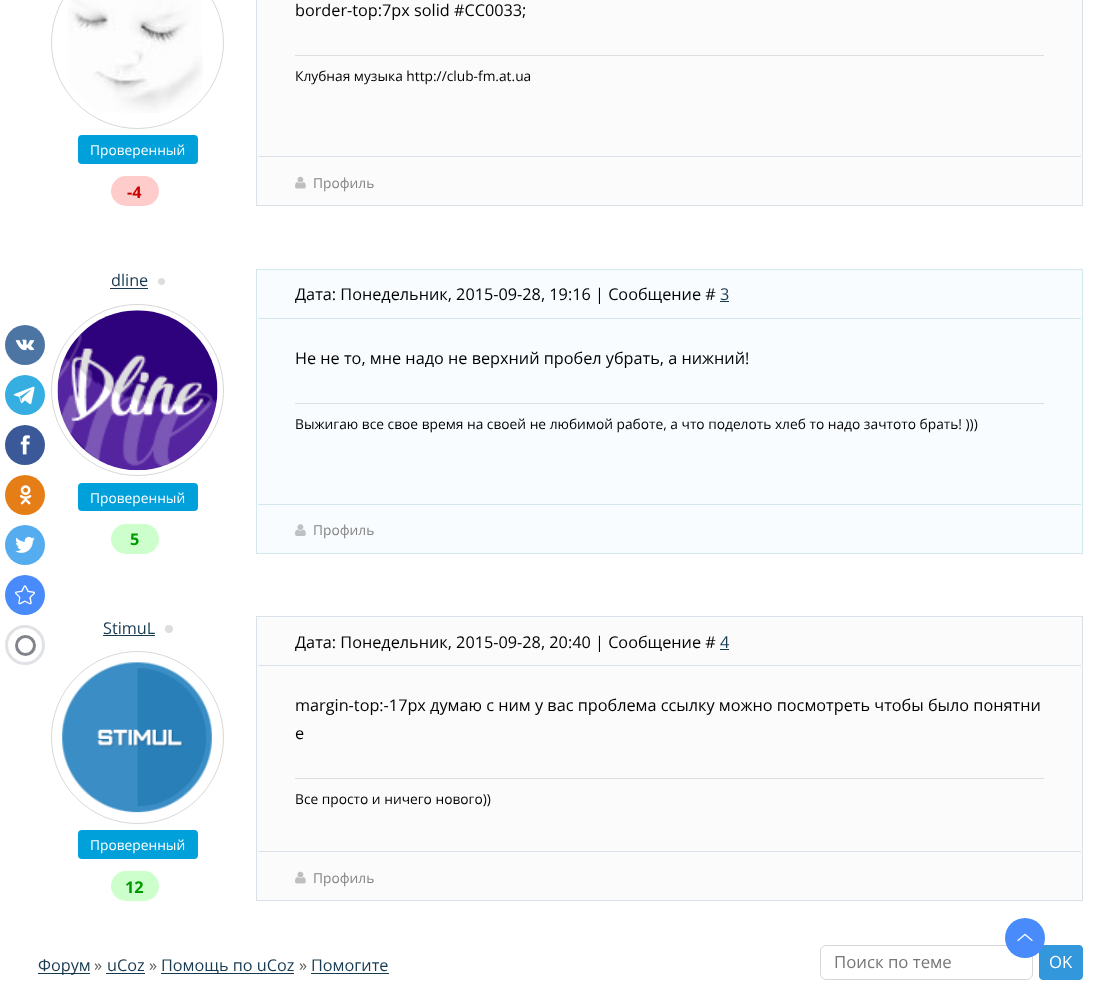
<?xml version="1.0" encoding="UTF-8"?>
<svg xmlns="http://www.w3.org/2000/svg" width="1120" height="988">
    <rect width="100%" height="100%" fill="#FFFFFF"/>
    <circle cx="137.5" cy="42.5" r="86" fill="none" stroke="#D8D8D8"/>
    <image x="68" y="0" width="135" height="113" href="img_01.png"/>
    <rect x="78" y="135" width="120" height="29" rx="4" fill="#00A0DB"/>
    <text x="90" y="155" font-family="Open Sans" font-size="13.75" fill="#FFFFFF">Проверенный</text>
    <rect x="111" y="176" width="48" height="30" rx="15" fill="#FFCCCC"/>
    <text x="127" y="198" font-family="Open Sans" font-size="16.25" font-weight="700" fill="#CC0000">-4</text>
    <rect x="256.5" y="-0.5" width="826" height="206" fill="#FBFBFB" stroke="#DBE1E8"/>
    <text x="295" y="16" font-family="Open Sans" font-size="16.25" fill="#000000">border-top:7px solid #CC0033;</text>
    <rect x="295" y="55" width="749" height="1" fill="#DEDEDE"/>
    <text x="295" y="81" font-family="Open Sans" font-size="13.75" fill="#000000">Клубная музыка http://club-fm.at.ua</text>
    <rect x="258" y="156" width="823" height="1" fill="#DBE1E8"/>
    <image x="295" y="176" width="11" height="13" href="img_02.png"/>
    <text x="313" y="188" font-family="Open Sans" font-size="13.75" fill="#848484">Профиль</text>
    <text x="111" y="286" font-family="Open Sans" font-size="16.25" fill="#173A51">dline</text>
    <rect x="110" y="288" width="38" height="1" fill="#173A51"/>
    <circle cx="161.5" cy="281.5" r="3.5" fill="#DEDEDE"/>
    <rect x="51.5" y="304.5" width="172" height="171" rx="85.5" fill="none" stroke="#D8D8D8"/>
    <image x="57" y="310" width="161" height="161" href="img_03.png"/>
    <rect x="78" y="483" width="120" height="28" rx="4" fill="#00A0DB"/>
    <text x="90" y="503" font-family="Open Sans" font-size="13.75" fill="#FFFFFF">Проверенный</text>
    <rect x="111" y="524" width="48" height="30" rx="15" fill="#CCFFCC"/>
    <text x="130" y="545" font-family="Open Sans" font-size="16.25" font-weight="700" fill="#009900">5</text>
    <rect x="256.5" y="269.5" width="826" height="284" fill="#F8FCFF" stroke="#D3E8ED"/>
    <rect x="258" y="318" width="823" height="1" fill="#D3E8ED"/>
    <text x="295" y="300" font-family="Open Sans" font-size="16.25" fill="#000000">Дата: Понедельник, 2015-09-28, 19:16 | Сообщение #</text>
    <text x="720" y="300" font-family="Open Sans" font-size="16.25" fill="#173A51">3</text>
    <rect x="720" y="301" width="9" height="1" fill="#173A51"/>
    <text x="295" y="364" font-family="Open Sans" font-size="16.25" fill="#000000">Не не то, мне надо не верхний пробел убрать, а нижний!</text>
    <rect x="295" y="403" width="749" height="1" fill="#DEDEDE"/>
    <text x="295" y="429" font-family="Open Sans" font-size="13.75" fill="#000000">Выжигаю все свое время на своей не любимой работе, а что поделоть хлеб то надо зачтото брать! )))</text>
    <rect x="258" y="504" width="823" height="1" fill="#D3E8ED"/>
    <image x="295" y="524" width="11" height="12" href="img_04.png"/>
    <text x="313" y="535" font-family="Open Sans" font-size="13.75" fill="#848484">Профиль</text>
    <text x="103" y="634" font-family="Open Sans" font-size="16.25" fill="#173A51">StimuL</text>
    <rect x="103" y="635" width="52" height="1" fill="#173A51"/>
    <circle cx="169" cy="629" r="4" fill="#DEDEDE"/>
    <circle cx="137.5" cy="737.5" r="86" fill="none" stroke="#D8D8D8"/>
    <image x="62" y="662" width="150" height="151" href="img_05.png"/>
    <rect x="78" y="830" width="120" height="29" rx="4" fill="#00A0DB"/>
    <text x="90" y="850" font-family="Open Sans" font-size="13.75" fill="#FFFFFF">Проверенный</text>
    <rect x="111" y="871" width="48" height="30" rx="15" fill="#CCFFCC"/>
    <text x="125" y="893" font-family="Open Sans" font-size="16.25" font-weight="700" fill="#009900">12</text>
    <rect x="256.5" y="616.5" width="826" height="284" fill="#FBFBFB" stroke="#DBE1E8"/>
    <rect x="258" y="665" width="823" height="1" fill="#DBE1E8"/>
    <text x="295" y="648" font-family="Open Sans" font-size="16.25" fill="#000000">Дата: Понедельник, 2015-09-28, 20:40 | Сообщение #</text>
    <text x="720" y="648" font-family="Open Sans" font-size="16.25" fill="#173A51">4</text>
    <rect x="720" y="649" width="9" height="1" fill="#173A51"/>
    <text font-family="Open Sans" font-size="16.25" fill="#000000">
        <tspan x="295" y="711">margin-top:-17px думаю с ним у вас проблема ссылку можно посмотреть чтобы было понятни</tspan>
        <tspan x="295" y="739">е</tspan>
    </text>
    <rect x="295" y="778" width="749" height="1" fill="#DEDEDE"/>
    <text x="295" y="804" font-family="Open Sans" font-size="13.75" fill="#000000">Все просто и ничего нового))</text>
    <rect x="258" y="851" width="823" height="1" fill="#DBE1E8"/>
    <image x="295" y="871" width="11" height="13" href="img_02.png"/>
    <text x="313" y="883" font-family="Open Sans" font-size="13.75" fill="#848484">Профиль</text>
    <rect x="38" y="973" width="52" height="1" fill="#173A51"/>
    <text x="38" y="971" font-family="Open Sans" font-size="16.25" fill="#173A51">Форум</text>
    <text x="94" y="971" font-family="Open Sans" font-size="16.25" fill="#646464">»</text>
    <text x="107" y="971" font-family="Open Sans" font-size="16.25" fill="#173A51">uCoz</text>
    <rect x="106" y="973" width="39" height="1" fill="#173A51"/>
    <text x="149" y="971" font-family="Open Sans" font-size="16.25" fill="#646464">»</text>
    <rect x="161" y="973" width="133" height="1" fill="#173A51"/>
    <text x="161" y="971" font-family="Open Sans" font-size="16.25" fill="#173A51">Помощь по uCoz</text>
    <text x="299" y="971" font-family="Open Sans" font-size="16.25" fill="#646464">»</text>
    <text x="311" y="971" font-family="Open Sans" font-size="16.25" fill="#173A51">Помогите</text>
    <rect x="311" y="973" width="78" height="1" fill="#173A51"/>
    <rect x="820.5" y="945.5" width="212" height="34" rx="5.5" fill="none" stroke="#D6D6D6"/>
    <text x="834" y="968" font-family="Open Sans" font-size="16.75" fill="#757575">Поиск по теме</text>
    <rect x="1039.5" y="945.5" width="43" height="34" rx="3.5" fill="#3297DB" stroke="#3297DB"/>
    <text x="1049" y="968" font-family="Open Sans" font-size="16.75" fill="#FFFFFF">OK</text>
    <circle cx="25" cy="345" r="20" fill="#4D75A3"/>
    <image x="15" y="339" width="20" height="12" href="img_06.png"/>
    <circle cx="25" cy="395" r="20" fill="#37AEE2"/>
    <image x="13" y="386" width="22" height="19" href="img_07.png"/>
    <circle cx="25" cy="445" r="20" fill="#3B5998"/>
    <image x="20" y="435" width="10" height="20" href="img_08.png"/>
    <circle cx="25" cy="495" r="20" fill="#E67E17"/>
    <image x="19" y="485" width="13" height="20" href="img_09.png"/>
    <circle cx="25" cy="545" r="20" fill="#55ACEE"/>
    <image x="15" y="536" width="20" height="17" href="img_10.png"/>
    <circle cx="25" cy="595" r="20" fill="#498BFA"/>
    <image x="15" y="585" width="20" height="20" href="img_11.png"/>
    <circle cx="25" cy="645" r="18.5" fill="none" stroke="#E0E2E6" stroke-width="3"/>
    <circle cx="25.5" cy="645.5" r="9" fill="none" stroke="#81858B" stroke-width="3"/>
    <circle cx="1025" cy="938" r="20" fill="#498BFA"/>
    <image x="1017" y="933" width="16" height="9" href="img_12.png"/>
</svg>
